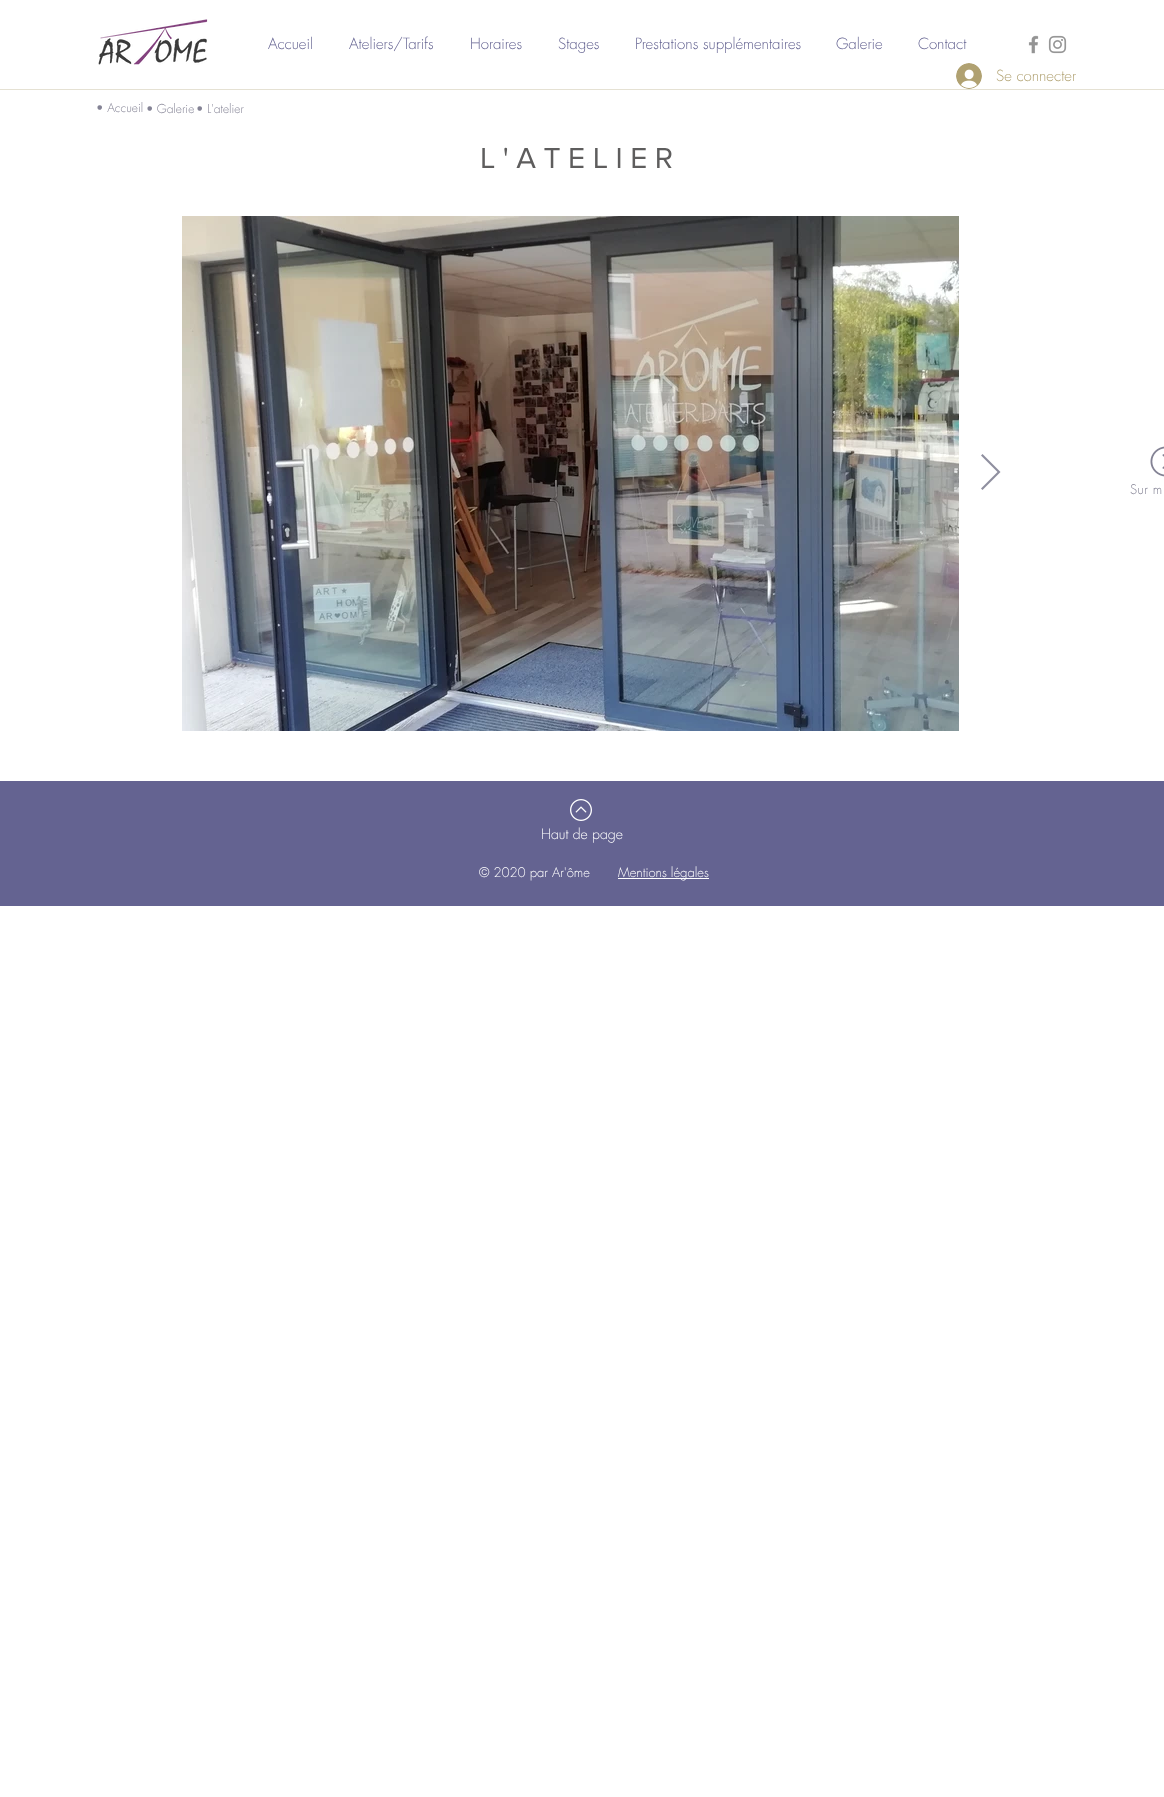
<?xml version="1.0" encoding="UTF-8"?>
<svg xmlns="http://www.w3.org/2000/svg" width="1164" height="1797">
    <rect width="100%" height="100%" fill="#FFFFFF"/>
    <image x="98" y="19" width="110" height="46" href="img_01.png"/>
    <text x="268" y="49" font-family="futura" font-size="15" font-weight="300" fill="#646391">Accueil</text>
    <text x="349" y="49" font-family="futura" font-size="15" font-weight="300" fill="#646391">Ateliers/Tarifs</text>
    <text x="470" y="49" font-family="futura" font-size="15" font-weight="300" fill="#646391">Horaires</text>
    <text x="558" y="49" font-family="futura" font-size="15" font-weight="300" fill="#646391">Stages</text>
    <text x="635" y="49" font-family="futura" font-size="15" font-weight="300" fill="#646391">Prestations supplémentaires</text>
    <text x="836" y="49" font-family="futura" font-size="15" font-weight="300" fill="#646391">Galerie</text>
    <text x="918" y="49" font-family="futura" font-size="15" font-weight="300" fill="#646391">Contact</text>
    <image x="1028" y="35" width="11" height="19" href="img_02.png"/>
    <image x="1048" y="35" width="19" height="19" href="img_03.png"/>
    <image x="956" y="63" width="26" height="26" href="img_04.png"/>
    <text x="996" y="81" font-family="futura" font-size="15" font-weight="300" fill="#B0A171">Se connecter</text>
    <rect x="0" y="89" width="1164" height="1" fill="#E5E1D3"/>
    <text x="96" y="112" font-family="futura" font-size="12" font-weight="300" fill="#838294">• Accueil</text>
    <text x="146" y="113" font-family="futura" font-size="12" font-weight="300" fill="#838294">• Galerie</text>
    <text x="196" y="113" font-family="futura" font-size="12" font-weight="300" fill="#838294">• L'atelier</text>
    <text x="480" y="168" font-family="'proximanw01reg'" font-size="30" letter-spacing="7.5" fill="#5E5D5D">L'ATELIER</text>
    <image x="182" y="216" width="777" height="515" href="img_05.png"/>
    <path d="M 981 455.5 L 982.5 454 L 1000.5 472 L 982.5 490 L 981 488.5 L 997.5 472 Z" fill="#8F8F9F"/>
    <image x="1150" y="446" width="14" height="31" href="img_06.png"/>
    <text x="1130" y="494" font-family="futura" font-size="13" font-weight="300" letter-spacing="0.5" fill="#838294">Sur m</text>
    <rect x="0" y="781" width="1164" height="125" fill="#646391"/>
    <image x="570" y="799" width="22" height="22" href="img_07.png"/>
    <text x="541" y="839" font-family="futura" font-size="14" font-weight="300" fill="#FFFFFF">Haut de page</text>
    <text x="479" y="877" font-family="futura" font-size="13" font-weight="300" fill="#FFFFFF">© 2020 par Ar'ôme</text>
    <rect x="618" y="878" width="91" height="1" fill="#FFFFFF"/>
    <text x="618" y="877" font-family="futura" font-size="13" font-weight="300" fill="#FFFFFF">Mentions légales</text>
</svg>
